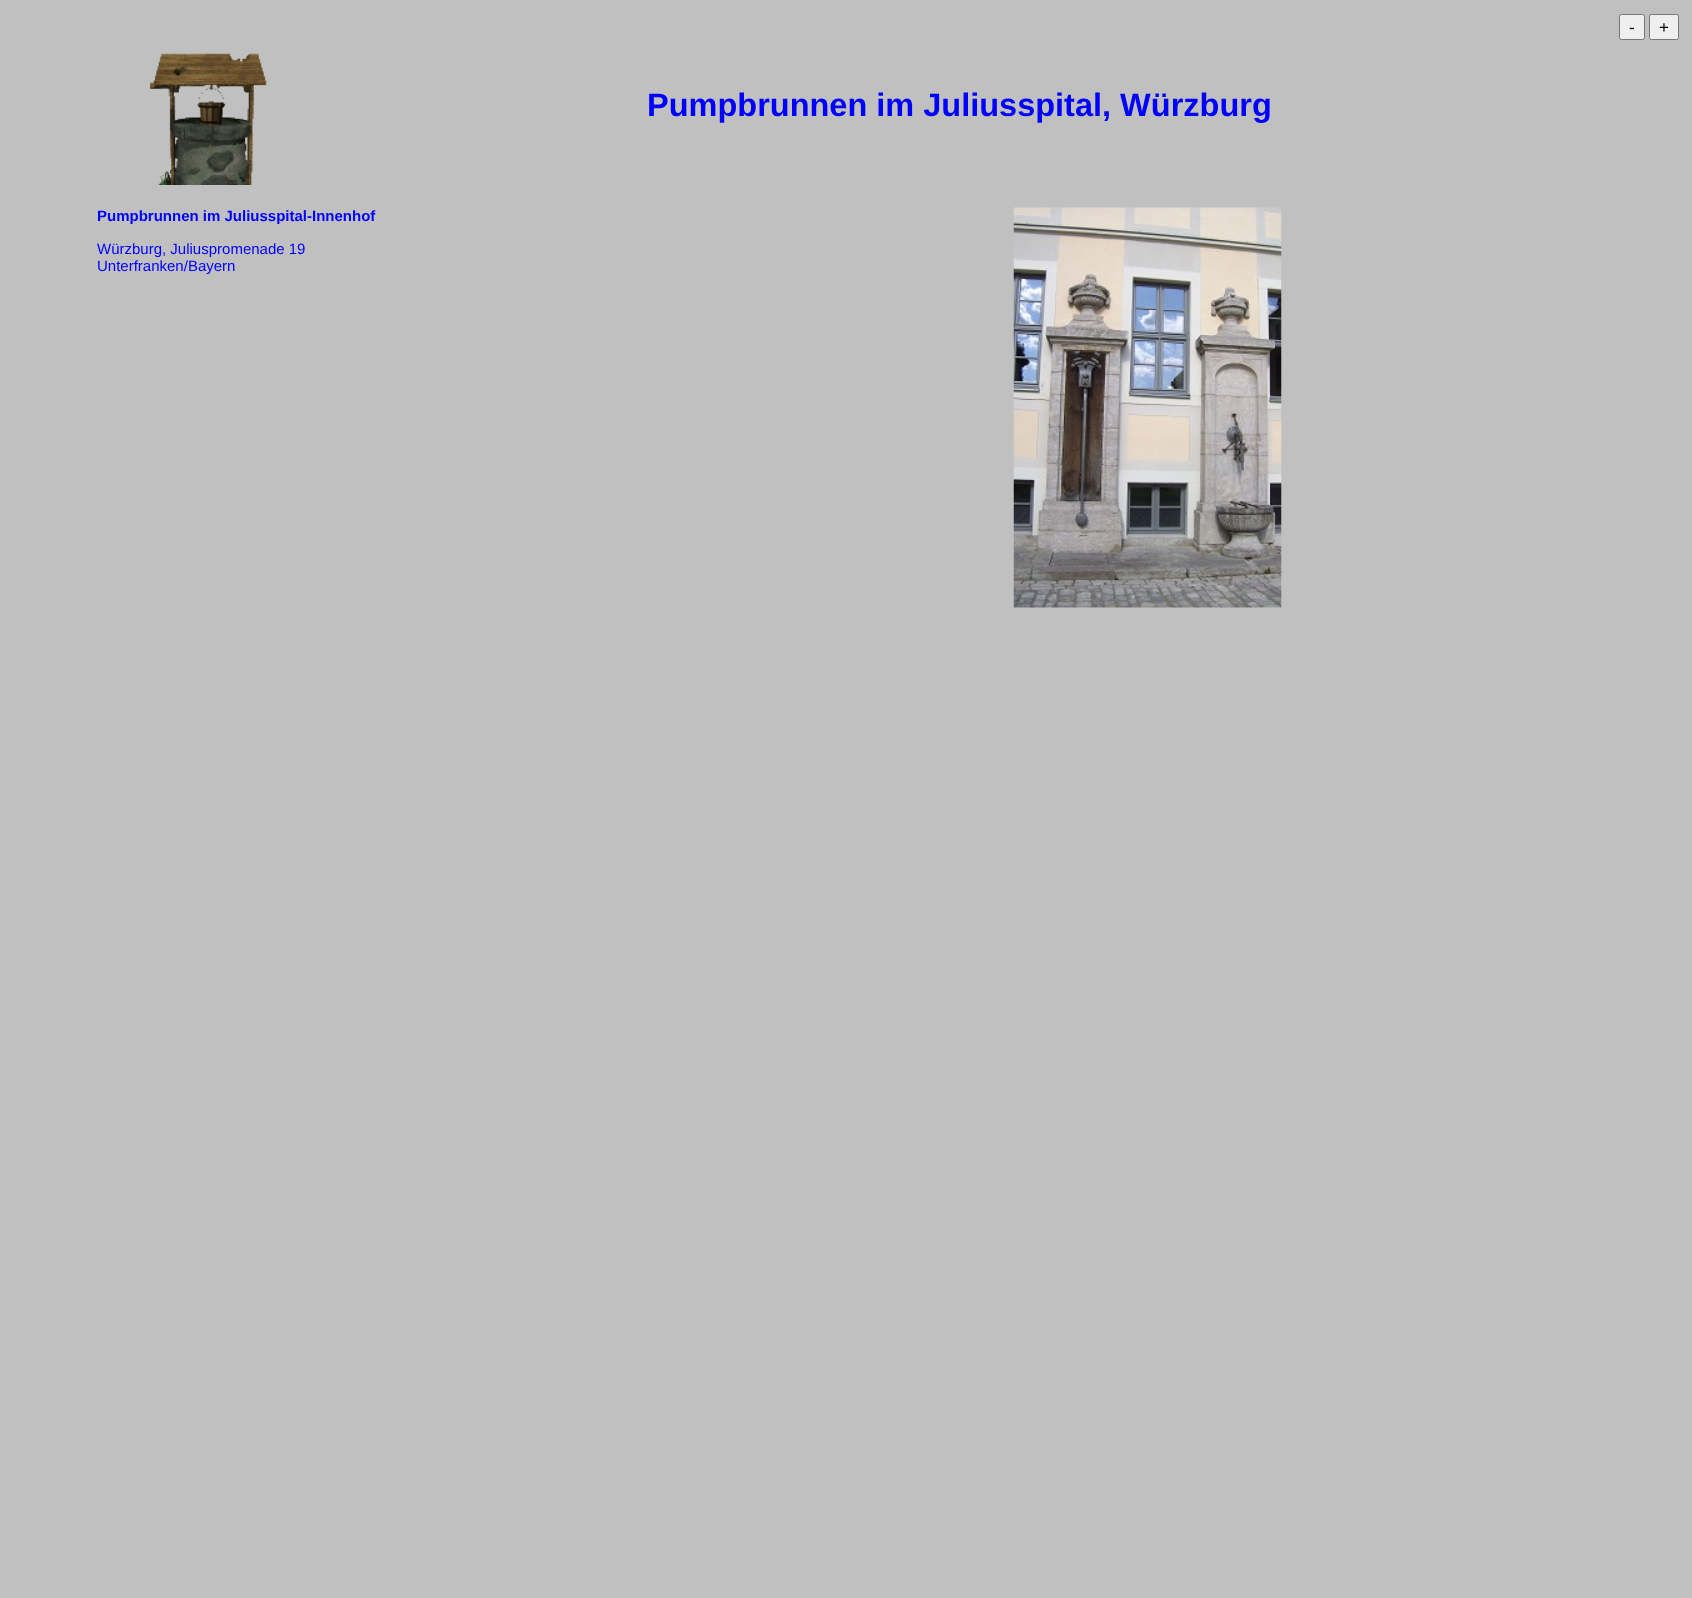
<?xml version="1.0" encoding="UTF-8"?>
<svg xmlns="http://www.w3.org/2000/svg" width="1692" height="1598">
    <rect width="100%" height="100%" fill="#C0C0C0"/>
    <rect x="1619.5" y="14.5" width="25" height="25" rx="2" fill="#EFEFEF" stroke="#767676"/>
    <text x="1629" y="33" font-family="Liberation Sans" font-size="17" fill="#000000">-</text>
    <rect x="1649.5" y="14.5" width="29" height="25" rx="2" fill="#EFEFEF" stroke="#767676"/>
    <text x="1659" y="33" font-family="Liberation Sans" font-size="17" fill="#000000">+</text>
    <image x="149" y="53" width="118" height="132" href="img_01.png"/>
    <text x="647" y="116" font-family="Liberation Sans" font-size="32.5" font-weight="700" fill="#0000FF">Pumpbrunnen im Juliusspital, Würzburg</text>
    <text x="97" y="221" font-family="Liberation Sans" font-size="15" font-weight="700" fill="#0000FF">Pumpbrunnen im Juliusspital-Innenhof</text>
    <text font-family="Liberation Sans" font-size="15" fill="#0000FF">
        <tspan x="97" y="254">Würzburg, Juliuspromenade 19</tspan>
        <tspan x="97" y="271">Unterfranken/Bayern</tspan>
    </text>
    <image x="1013" y="207" width="269" height="401" href="img_02.png"/>
</svg>
